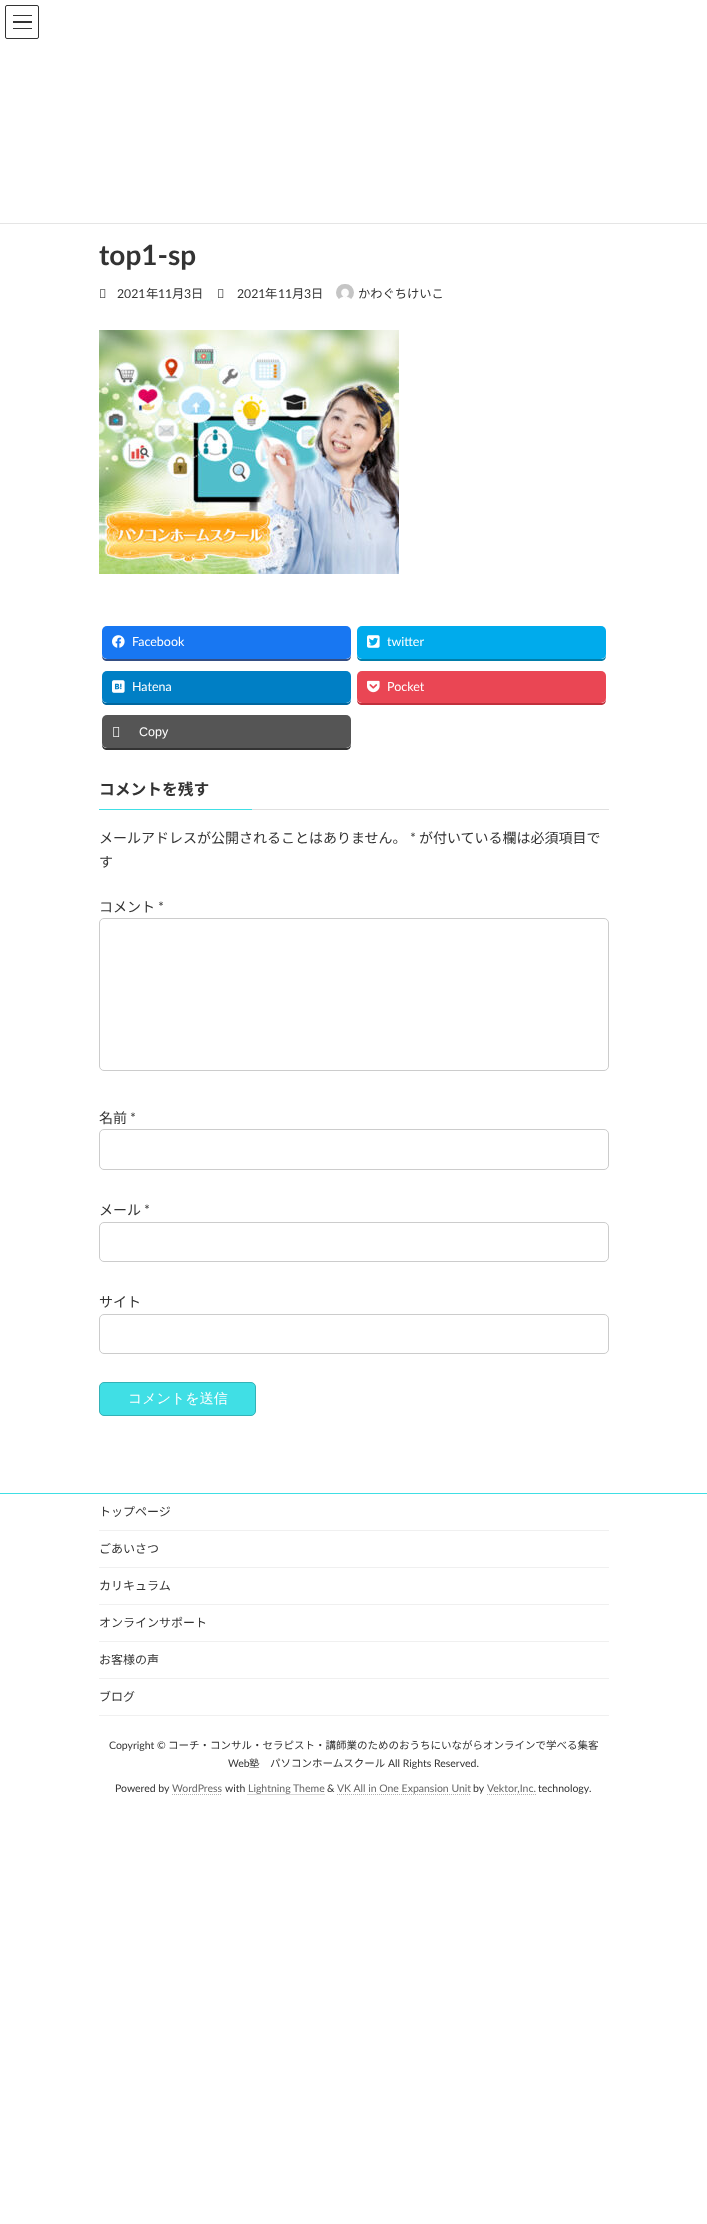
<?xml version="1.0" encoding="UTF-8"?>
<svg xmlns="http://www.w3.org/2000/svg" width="707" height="2224">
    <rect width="100%" height="100%" fill="#FFFFFF"/>
    <rect x="13" y="15" width="19" height="1" fill="#333333"/>
    <rect x="13" y="21" width="19" height="2" fill="#333333"/>
    <rect x="13" y="28" width="19" height="1" fill="#333333"/>
    <rect x="5.5" y="5.5" width="33" height="33" rx="1.5" fill="none" stroke="#333333"/>
    <rect x="0" y="223" width="707" height="1" fill="#E5E5E5"/>
    <text x="99" y="265" font-family="Lato" font-size="28" font-weight="700" fill="#333333">top1-sp</text>
    <image x="100" y="289" width="6" height="9" href="img_01.png"/>
    <text x="117" y="298" font-family="Lato" font-size="12.25" fill="#333333">2021</text>
    <text x="146" y="298" font-family="Noto Sans JP" font-size="12.25" fill="#333333">年</text>
    <text x="158" y="298" font-family="Lato" font-size="12.25" fill="#333333">11</text>
    <text x="172" y="298" font-family="Noto Sans JP" font-size="12.25" fill="#333333">月</text>
    <text x="184" y="298" font-family="Lato" font-size="12.25" fill="#333333">3</text>
    <text x="191" y="298" font-family="Noto Sans JP" font-size="12.25" fill="#333333">日</text>
    <image x="218" y="289" width="6" height="9" href="img_01.png"/>
    <text x="237" y="298" font-family="Lato" font-size="12.25" fill="#333333">2021</text>
    <text x="265" y="298" font-family="Noto Sans JP" font-size="12.25" fill="#333333">年</text>
    <text x="278" y="298" font-family="Lato" font-size="12.25" fill="#333333">11</text>
    <text x="292" y="298" font-family="Noto Sans JP" font-size="12.25" fill="#333333">月</text>
    <text x="304" y="298" font-family="Lato" font-size="12.25" fill="#333333">3</text>
    <text x="311" y="298" font-family="Noto Sans JP" font-size="12.25" fill="#333333">日</text>
    <image x="336" y="284" width="18" height="15" href="img_02.png"/>
    <text x="358" y="298" font-family="Noto Sans JP" font-size="12.25" fill="#333333">かわぐちけいこ</text>
    <image x="99" y="330" width="300" height="244" href="img_03.png"/>
    <path d="M 102 654 C 102 657 102 660 106 661 H 347 C 351 660 351 657 351 654 C 351 657 349 659 346 659 H 107 C 104 659 102 657 102 654 Z" fill="#344E84"/>
    <rect x="102" y="626" width="249" height="33" rx="5" fill="#1877F2"/>
    <image x="112" y="635" width="13" height="13" href="img_04.png"/>
    <text x="132" y="646" font-family="Lato" font-size="12.5" fill="#FFFFFF">Facebook</text>
    <path d="M 357 654 C 357 657 357 660 361 661 H 602 C 606 660 606 657 606 654 C 606 657 604 659 601 659 H 362 C 359 659 357 657 357 654 Z" fill="#007EAA"/>
    <rect x="357" y="626" width="249" height="33" rx="5" fill="#00ABEC"/>
    <image x="367" y="635" width="13" height="13" href="img_05.png"/>
    <text x="387" y="646" font-family="Lato" font-size="12.5" fill="#FFFFFF">twitter</text>
    <path d="M 102 698 C 102 701 102 704 106 705 H 347 C 351 704 351 701 351 698 C 351 701 349 703 346 703 H 107 C 104 703 102 701 102 698 Z" fill="#00679F"/>
    <rect x="102" y="671" width="249" height="32" rx="5" fill="#007FC5"/>
    <image x="112" y="680" width="13" height="13" href="img_06.png"/>
    <text x="132" y="691" font-family="Lato" font-size="12.5" fill="#FFFFFF">Hatena</text>
    <path d="M 357 698 C 357 701 357 704 361 705 H 602 C 606 704 606 701 606 698 C 606 701 604 703 601 703 H 362 C 359 703 357 701 357 698 Z" fill="#C1303C"/>
    <rect x="357" y="671" width="249" height="32" rx="5" fill="#EA4654"/>
    <image x="367" y="680" width="13" height="13" href="img_07.png"/>
    <text x="387" y="691" font-family="Lato" font-size="12.5" fill="#FFFFFF">Pocket</text>
    <path d="M 102 743 C 102 746 102 749 106 750 H 347 C 351 749 351 746 351 743 C 351 746 349 748 346 748 H 107 C 104 748 102 746 102 743 Z" fill="#333333"/>
    <rect x="102" y="715" width="249" height="33" rx="5" fill="#555555"/>
    <image x="113" y="727" width="7" height="10" href="img_08.png"/>
    <text x="139" y="736" font-family="Liberation Sans" font-size="12.5" fill="#FFFFFF">Copy</text>
    <rect x="252" y="809" width="357" height="1" fill="#E0E0E0"/>
    <text x="99" y="795" font-family="Noto Sans JP" font-size="15.75" font-weight="700" fill="#333333">コメントを残す</text>
    <rect x="99" y="809" width="153" height="1" fill="#40DFE5"/>
    <text x="99" y="843" font-family="Noto Sans JP" font-size="14" fill="#333333">メールアドレスが公開されることはありません。</text>
    <text x="410" y="843" font-family="Lato" font-size="14" fill="#333333">*</text>
    <text x="419" y="843" font-family="Noto Sans JP" font-size="14" fill="#333333">が付いている欄は必須項目で</text>
    <text x="99" y="867" font-family="Noto Sans JP" font-size="14" fill="#333333">す</text>
    <text x="99" y="912" font-family="Noto Sans JP" font-size="14" fill="#333333">コメント</text>
    <text x="158" y="912" font-family="Lato" font-size="14" fill="#333333">*</text>
    <rect x="99.5" y="918.5" width="509" height="152" rx="4.5" fill="none" stroke="#CCCCCC"/>
    <text x="99" y="1123" font-family="Noto Sans JP" font-size="14" fill="#333333">名前</text>
    <text x="130" y="1123" font-family="Lato" font-size="14" fill="#333333">*</text>
    <rect x="99.5" y="1129.5" width="509" height="40" rx="4.5" fill="none" stroke="#CCCCCC"/>
    <text x="99" y="1215" font-family="Noto Sans JP" font-size="14" fill="#333333">メール</text>
    <text x="144" y="1215" font-family="Lato" font-size="14" fill="#333333">*</text>
    <rect x="99.5" y="1222.5" width="509" height="39" rx="4.5" fill="none" stroke="#CCCCCC"/>
    <text x="99" y="1307" font-family="Noto Sans JP" font-size="14" fill="#333333">サイト</text>
    <rect x="99.5" y="1314.5" width="509" height="39" rx="4.5" fill="none" stroke="#CCCCCC"/>
    <rect x="99.5" y="1382.5" width="156" height="33" rx="4.5" fill="#40DFE5" stroke="#33B2B7"/>
    <text x="128" y="1403" font-family="WenQuanYi Zen Hei" font-size="14" font-weight="500" fill="#FFFFFF">コメントを送信</text>
    <rect x="0" y="1493" width="707" height="1" fill="#40DFE5"/>
    <rect x="99" y="1530" width="510" height="1" fill="#F0F0F0"/>
    <text x="99" y="1516" font-family="Noto Sans JP" font-size="12" fill="#333333">トップページ</text>
    <rect x="99" y="1567" width="510" height="1" fill="#F0F0F0"/>
    <text x="99" y="1553" font-family="Noto Sans JP" font-size="12" fill="#333333">ごあいさつ</text>
    <rect x="99" y="1604" width="510" height="1" fill="#F0F0F0"/>
    <text x="99" y="1590" font-family="Noto Sans JP" font-size="12" fill="#333333">カリキュラム</text>
    <rect x="99" y="1641" width="510" height="1" fill="#F0F0F0"/>
    <text x="99" y="1627" font-family="Noto Sans JP" font-size="12" fill="#333333">オンラインサポート</text>
    <rect x="99" y="1678" width="510" height="1" fill="#F0F0F0"/>
    <text x="99" y="1664" font-family="Noto Sans JP" font-size="12" fill="#333333">お客様の声</text>
    <rect x="99" y="1715" width="510" height="1" fill="#F0F0F0"/>
    <text x="99" y="1701" font-family="Noto Sans JP" font-size="12" fill="#333333">ブログ</text>
    <text x="109" y="1749" font-family="Lato" font-size="10.5" fill="#333333">Copyright ©</text>
    <text x="168" y="1749" font-family="Noto Sans JP" font-size="10.5" fill="#333333">コーチ・コンサル・セラピスト・講師業のためのおうちにいながらオンラインで学べる集客</text>
    <text x="228" y="1767" font-family="Lato" font-size="10.5" fill="#333333">Web</text>
    <text x="249" y="1767" font-family="Noto Sans JP" font-size="10.5" fill="#333333">塾　パソコンホームスクール</text>
    <text x="388" y="1767" font-family="Lato" font-size="10.5" fill="#333333">All Rights Reserved.</text>
    <text x="115" y="1792" font-family="Lato" font-size="10.5" fill="#333333">Powered by</text>
    <text x="172" y="1792" font-family="Lato" font-size="10.5" fill="#666666">WordPress</text>
    <path d="M 172 1794.5 H 222" fill="none" stroke="#B3B3B3" stroke-dasharray="1 1"/>
    <text x="225" y="1792" font-family="Lato" font-size="10.5" fill="#333333">with</text>
    <text x="248" y="1792" font-family="Lato" font-size="10.5" fill="#666666">Lightning Theme</text>
    <path d="M 247.5 1794.5 H 324.5" fill="none" stroke="#B3B3B3" stroke-dasharray="1 1"/>
    <text x="327" y="1792" font-family="Lato" font-size="10.5" fill="#333333">&amp;</text>
    <text x="337" y="1792" font-family="Lato" font-size="10.5" fill="#666666">VK All in One Expansion Unit</text>
    <path d="M 337 1794.5 H 471" fill="none" stroke="#B3B3B3" stroke-dasharray="1 1"/>
    <text x="473" y="1792" font-family="Lato" font-size="10.5" fill="#333333">by</text>
    <text x="487" y="1792" font-family="Lato" font-size="10.5" fill="#666666">Vektor,Inc.</text>
    <path d="M 487 1794.5 H 536" fill="none" stroke="#B3B3B3" stroke-dasharray="1 1"/>
    <text x="538" y="1792" font-family="Lato" font-size="10.5" fill="#333333">technology.</text>
</svg>
